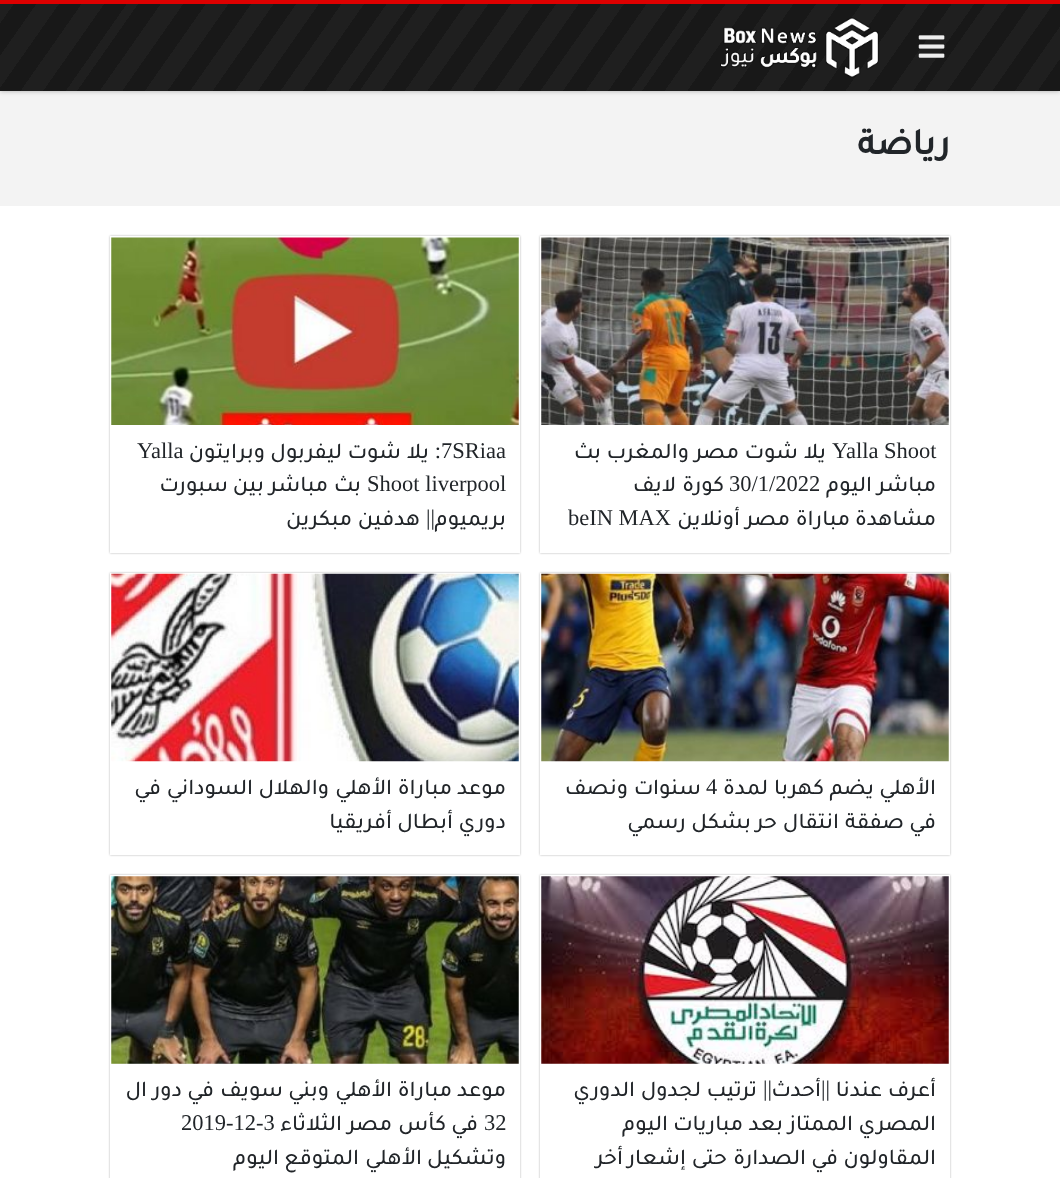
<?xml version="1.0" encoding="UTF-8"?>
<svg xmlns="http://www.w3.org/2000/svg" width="1060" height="1178">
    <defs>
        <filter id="blur1" x="-50%" y="-200%" width="200%" height="500%"><feGaussianBlur stdDeviation="2.5"/></filter>
        <linearGradient id="g1" gradientUnits="userSpaceOnUse" x1="906" y1="311" x2="148" y2="-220"><stop offset="0" stop-color="#181818"/><stop offset="0.01" stop-color="#181818"/><stop offset="0.01" stop-color="#1F1F1F"/><stop offset="0.01" stop-color="#181818"/><stop offset="0.02" stop-color="#181818"/><stop offset="0.02" stop-color="#1F1F1F"/><stop offset="0.03" stop-color="#1F1F1F"/><stop offset="0.03" stop-color="#181818"/><stop offset="0.03" stop-color="#1F1F1F"/><stop offset="0.04" stop-color="#1F1F1F"/><stop offset="0.04" stop-color="#181818"/><stop offset="0.05" stop-color="#181818"/><stop offset="0.05" stop-color="#1F1F1F"/><stop offset="0.05" stop-color="#181818"/><stop offset="0.06" stop-color="#181818"/><stop offset="0.06" stop-color="#1F1F1F"/><stop offset="0.07" stop-color="#1F1F1F"/><stop offset="0.07" stop-color="#181818"/><stop offset="0.07" stop-color="#1F1F1F"/><stop offset="0.08" stop-color="#1F1F1F"/><stop offset="0.08" stop-color="#181818"/><stop offset="0.09" stop-color="#181818"/><stop offset="0.09" stop-color="#1F1F1F"/><stop offset="0.09" stop-color="#181818"/><stop offset="0.1" stop-color="#181818"/><stop offset="0.1" stop-color="#1F1F1F"/><stop offset="0.11" stop-color="#1F1F1F"/><stop offset="0.11" stop-color="#181818"/><stop offset="0.11" stop-color="#1F1F1F"/><stop offset="0.12" stop-color="#1F1F1F"/><stop offset="0.12" stop-color="#181818"/><stop offset="0.13" stop-color="#181818"/><stop offset="0.13" stop-color="#1F1F1F"/><stop offset="0.14" stop-color="#1F1F1F"/><stop offset="0.14" stop-color="#181818"/><stop offset="0.14" stop-color="#1F1F1F"/><stop offset="0.15" stop-color="#1F1F1F"/><stop offset="0.15" stop-color="#181818"/><stop offset="0.16" stop-color="#181818"/><stop offset="0.16" stop-color="#1F1F1F"/><stop offset="0.16" stop-color="#181818"/><stop offset="0.17" stop-color="#181818"/><stop offset="0.17" stop-color="#1F1F1F"/><stop offset="0.18" stop-color="#1F1F1F"/><stop offset="0.18" stop-color="#181818"/><stop offset="0.18" stop-color="#1F1F1F"/><stop offset="0.19" stop-color="#1F1F1F"/><stop offset="0.19" stop-color="#181818"/><stop offset="0.2" stop-color="#181818"/><stop offset="0.2" stop-color="#1F1F1F"/><stop offset="0.2" stop-color="#181818"/><stop offset="0.21" stop-color="#181818"/><stop offset="0.21" stop-color="#1F1F1F"/><stop offset="0.22" stop-color="#1F1F1F"/><stop offset="0.22" stop-color="#181818"/><stop offset="0.22" stop-color="#1F1F1F"/><stop offset="0.23" stop-color="#1F1F1F"/><stop offset="0.23" stop-color="#181818"/><stop offset="0.24" stop-color="#181818"/><stop offset="0.24" stop-color="#1F1F1F"/><stop offset="0.24" stop-color="#181818"/><stop offset="0.25" stop-color="#181818"/><stop offset="0.25" stop-color="#1F1F1F"/><stop offset="0.26" stop-color="#1F1F1F"/><stop offset="0.26" stop-color="#181818"/><stop offset="0.26" stop-color="#1F1F1F"/><stop offset="0.27" stop-color="#1F1F1F"/><stop offset="0.27" stop-color="#181818"/><stop offset="0.28" stop-color="#181818"/><stop offset="0.28" stop-color="#1F1F1F"/><stop offset="0.28" stop-color="#181818"/><stop offset="0.29" stop-color="#181818"/><stop offset="0.29" stop-color="#1F1F1F"/><stop offset="0.3" stop-color="#1F1F1F"/><stop offset="0.3" stop-color="#181818"/><stop offset="0.3" stop-color="#1F1F1F"/><stop offset="0.31" stop-color="#1F1F1F"/><stop offset="0.31" stop-color="#181818"/><stop offset="0.32" stop-color="#181818"/><stop offset="0.32" stop-color="#1F1F1F"/><stop offset="0.32" stop-color="#181818"/><stop offset="0.33" stop-color="#181818"/><stop offset="0.33" stop-color="#1F1F1F"/><stop offset="0.34" stop-color="#1F1F1F"/><stop offset="0.34" stop-color="#181818"/><stop offset="0.34" stop-color="#1F1F1F"/><stop offset="0.35" stop-color="#1F1F1F"/><stop offset="0.35" stop-color="#181818"/><stop offset="0.36" stop-color="#181818"/><stop offset="0.36" stop-color="#1F1F1F"/><stop offset="0.36" stop-color="#181818"/><stop offset="0.37" stop-color="#181818"/><stop offset="0.37" stop-color="#1F1F1F"/><stop offset="0.38" stop-color="#1F1F1F"/><stop offset="0.38" stop-color="#181818"/><stop offset="0.39" stop-color="#181818"/><stop offset="0.39" stop-color="#1F1F1F"/><stop offset="0.39" stop-color="#181818"/><stop offset="0.4" stop-color="#181818"/><stop offset="0.4" stop-color="#1F1F1F"/><stop offset="0.41" stop-color="#1F1F1F"/><stop offset="0.41" stop-color="#181818"/><stop offset="0.41" stop-color="#1F1F1F"/><stop offset="0.42" stop-color="#1F1F1F"/><stop offset="0.42" stop-color="#181818"/><stop offset="0.43" stop-color="#181818"/><stop offset="0.43" stop-color="#1F1F1F"/><stop offset="0.43" stop-color="#181818"/><stop offset="0.44" stop-color="#181818"/><stop offset="0.44" stop-color="#1F1F1F"/><stop offset="0.45" stop-color="#1F1F1F"/><stop offset="0.45" stop-color="#181818"/><stop offset="0.45" stop-color="#1F1F1F"/><stop offset="0.46" stop-color="#1F1F1F"/><stop offset="0.46" stop-color="#181818"/><stop offset="0.47" stop-color="#181818"/><stop offset="0.47" stop-color="#1F1F1F"/><stop offset="0.47" stop-color="#181818"/><stop offset="0.48" stop-color="#181818"/><stop offset="0.48" stop-color="#1F1F1F"/><stop offset="0.49" stop-color="#1F1F1F"/><stop offset="0.49" stop-color="#181818"/><stop offset="0.49" stop-color="#1F1F1F"/><stop offset="0.5" stop-color="#1F1F1F"/><stop offset="0.5" stop-color="#181818"/><stop offset="0.51" stop-color="#181818"/><stop offset="0.51" stop-color="#1F1F1F"/><stop offset="0.51" stop-color="#181818"/><stop offset="0.52" stop-color="#181818"/><stop offset="0.52" stop-color="#1F1F1F"/><stop offset="0.53" stop-color="#1F1F1F"/><stop offset="0.53" stop-color="#181818"/><stop offset="0.53" stop-color="#1F1F1F"/><stop offset="0.54" stop-color="#1F1F1F"/><stop offset="0.54" stop-color="#181818"/><stop offset="0.55" stop-color="#181818"/><stop offset="0.55" stop-color="#1F1F1F"/><stop offset="0.55" stop-color="#181818"/><stop offset="0.56" stop-color="#181818"/><stop offset="0.56" stop-color="#1F1F1F"/><stop offset="0.57" stop-color="#1F1F1F"/><stop offset="0.57" stop-color="#181818"/><stop offset="0.57" stop-color="#1F1F1F"/><stop offset="0.58" stop-color="#1F1F1F"/><stop offset="0.58" stop-color="#181818"/><stop offset="0.59" stop-color="#181818"/><stop offset="0.59" stop-color="#1F1F1F"/><stop offset="0.59" stop-color="#181818"/><stop offset="0.6" stop-color="#181818"/><stop offset="0.6" stop-color="#1F1F1F"/><stop offset="0.61" stop-color="#1F1F1F"/><stop offset="0.61" stop-color="#181818"/><stop offset="0.61" stop-color="#1F1F1F"/><stop offset="0.62" stop-color="#1F1F1F"/><stop offset="0.62" stop-color="#181818"/><stop offset="0.63" stop-color="#181818"/><stop offset="0.63" stop-color="#1F1F1F"/><stop offset="0.64" stop-color="#1F1F1F"/><stop offset="0.64" stop-color="#181818"/><stop offset="0.64" stop-color="#1F1F1F"/><stop offset="0.65" stop-color="#1F1F1F"/><stop offset="0.65" stop-color="#181818"/><stop offset="0.66" stop-color="#181818"/><stop offset="0.66" stop-color="#1F1F1F"/><stop offset="0.66" stop-color="#181818"/><stop offset="0.67" stop-color="#181818"/><stop offset="0.67" stop-color="#1F1F1F"/><stop offset="0.68" stop-color="#1F1F1F"/><stop offset="0.68" stop-color="#181818"/><stop offset="0.68" stop-color="#1F1F1F"/><stop offset="0.69" stop-color="#1F1F1F"/><stop offset="0.69" stop-color="#181818"/><stop offset="0.7" stop-color="#181818"/><stop offset="0.7" stop-color="#1F1F1F"/><stop offset="0.7" stop-color="#181818"/><stop offset="0.71" stop-color="#181818"/><stop offset="0.71" stop-color="#1F1F1F"/><stop offset="0.72" stop-color="#1F1F1F"/><stop offset="0.72" stop-color="#181818"/><stop offset="0.72" stop-color="#1F1F1F"/><stop offset="0.73" stop-color="#1F1F1F"/><stop offset="0.73" stop-color="#181818"/><stop offset="0.74" stop-color="#181818"/><stop offset="0.74" stop-color="#1F1F1F"/><stop offset="0.74" stop-color="#181818"/><stop offset="0.75" stop-color="#181818"/><stop offset="0.75" stop-color="#1F1F1F"/><stop offset="0.76" stop-color="#1F1F1F"/><stop offset="0.76" stop-color="#181818"/><stop offset="0.76" stop-color="#1F1F1F"/><stop offset="0.77" stop-color="#1F1F1F"/><stop offset="0.77" stop-color="#181818"/><stop offset="0.78" stop-color="#181818"/><stop offset="0.78" stop-color="#1F1F1F"/><stop offset="0.78" stop-color="#181818"/><stop offset="0.79" stop-color="#181818"/><stop offset="0.79" stop-color="#1F1F1F"/><stop offset="0.8" stop-color="#1F1F1F"/><stop offset="0.8" stop-color="#181818"/><stop offset="0.8" stop-color="#1F1F1F"/><stop offset="0.81" stop-color="#1F1F1F"/><stop offset="0.81" stop-color="#181818"/><stop offset="0.82" stop-color="#181818"/><stop offset="0.82" stop-color="#1F1F1F"/><stop offset="0.82" stop-color="#181818"/><stop offset="0.83" stop-color="#181818"/><stop offset="0.83" stop-color="#1F1F1F"/><stop offset="0.84" stop-color="#1F1F1F"/><stop offset="0.84" stop-color="#181818"/><stop offset="0.84" stop-color="#1F1F1F"/><stop offset="0.85" stop-color="#1F1F1F"/><stop offset="0.85" stop-color="#181818"/><stop offset="0.86" stop-color="#181818"/><stop offset="0.86" stop-color="#1F1F1F"/><stop offset="0.86" stop-color="#181818"/><stop offset="0.87" stop-color="#181818"/><stop offset="0.87" stop-color="#1F1F1F"/><stop offset="0.88" stop-color="#1F1F1F"/><stop offset="0.88" stop-color="#181818"/><stop offset="0.89" stop-color="#181818"/><stop offset="0.89" stop-color="#1F1F1F"/><stop offset="0.89" stop-color="#181818"/><stop offset="0.9" stop-color="#181818"/><stop offset="0.9" stop-color="#1F1F1F"/><stop offset="0.91" stop-color="#1F1F1F"/><stop offset="0.91" stop-color="#181818"/><stop offset="0.91" stop-color="#1F1F1F"/><stop offset="0.92" stop-color="#1F1F1F"/><stop offset="0.92" stop-color="#181818"/><stop offset="0.93" stop-color="#181818"/><stop offset="0.93" stop-color="#1F1F1F"/><stop offset="0.93" stop-color="#181818"/><stop offset="0.94" stop-color="#181818"/><stop offset="0.94" stop-color="#1F1F1F"/><stop offset="0.95" stop-color="#1F1F1F"/><stop offset="0.95" stop-color="#181818"/><stop offset="0.95" stop-color="#1F1F1F"/><stop offset="0.96" stop-color="#1F1F1F"/><stop offset="0.96" stop-color="#181818"/><stop offset="0.97" stop-color="#181818"/><stop offset="0.97" stop-color="#1F1F1F"/><stop offset="0.97" stop-color="#181818"/><stop offset="0.98" stop-color="#181818"/><stop offset="0.98" stop-color="#1F1F1F"/><stop offset="0.99" stop-color="#1F1F1F"/><stop offset="0.99" stop-color="#181818"/><stop offset="0.99" stop-color="#1F1F1F"/><stop offset="1" stop-color="#1F1F1F"/></linearGradient>
        <filter id="blur2" x="-50%" y="-200%" width="200%" height="500%"><feGaussianBlur stdDeviation="1"/></filter>
        <clipPath id="clip1"><path d="M 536 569 H 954 V 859 H 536 Z M 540 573 H 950 V 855 H 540 Z" clip-rule="evenodd"/></clipPath>
        <clipPath id="clip2"><path d="M 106 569 H 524 V 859 H 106 Z M 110 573 H 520 V 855 H 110 Z" clip-rule="evenodd"/></clipPath>
        <clipPath id="clip3"><path d="M 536 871 H 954 V 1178 H 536 Z M 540 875 H 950 V 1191 H 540 Z" clip-rule="evenodd"/></clipPath>
        <clipPath id="clip4"><path d="M 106 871 H 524 V 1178 H 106 Z M 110 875 H 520 V 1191 H 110 Z" clip-rule="evenodd"/></clipPath>
    </defs>
    <rect width="100%" height="100%" fill="#F3F3F3"/>
    <rect x="0" y="0" width="1060" height="91" fill="#000000" fill-opacity="0.3" filter="url(#blur1)"/>
    <rect x="0" y="0" width="1060" height="4" fill="#DD0000"/>
    <rect x="0" y="4" width="1060" height="87" fill="url(#g1)"/>
    <image x="918" y="35" width="27" height="23" href="img_01.png"/>
    <image x="720" y="17" width="159" height="61" href="img_02.png"/>
    <text x="950" y="154" font-family="Tajawal" font-size="37" font-weight="700" direction="rtl" fill="#212529">رياضة</text>
    <rect x="0" y="206" width="1060" height="972" fill="#FFFFFF"/>
    <rect x="540" y="236" width="410" height="317" fill="#000000" fill-opacity="0.3" filter="url(#blur2)"/>
    <rect x="540" y="236" width="410" height="317" fill="#FFFFFF"/>
    <image x="541" y="237" width="408" height="188" href="img_03.png"/>
    <text x="832" y="458" font-family="Liberation Serif" font-size="22.5" fill="#212529">Yalla Shoot</text>
    <text x="826" y="458" font-family="Tajawal" font-size="22.5" font-weight="500" direction="rtl" fill="#212529">يلا</text>
    <text x="798" y="458" font-family="Tajawal" font-size="22.5" font-weight="500" direction="rtl" fill="#212529">شوت</text>
    <text x="739" y="458" font-family="Tajawal" font-size="22.5" font-weight="500" direction="rtl" fill="#212529">مصر</text>
    <text x="689" y="458" font-family="Tajawal" font-size="22.5" font-weight="500" direction="rtl" fill="#212529">والمغرب</text>
    <text x="601" y="458" font-family="Tajawal" font-size="22.5" font-weight="500" direction="rtl" fill="#212529">بث</text>
    <text x="936" y="491" font-family="Tajawal" font-size="22.5" font-weight="500" direction="rtl" fill="#212529">مباشر</text>
    <text x="872" y="491" font-family="Tajawal" font-size="22.5" font-weight="500" direction="rtl" fill="#212529">اليوم</text>
    <text x="729" y="491" font-family="Liberation Serif" font-size="22.5" fill="#212529">30/1/2022</text>
    <text x="724" y="491" font-family="Tajawal" font-size="22.5" font-weight="500" direction="rtl" fill="#212529">كورة</text>
    <text x="676" y="491" font-family="Tajawal" font-size="22.5" font-weight="500" direction="rtl" fill="#212529">لايف</text>
    <text x="936" y="525" font-family="Tajawal" font-size="22.5" font-weight="500" direction="rtl" fill="#212529">مشاهدة</text>
    <text x="850" y="525" font-family="Tajawal" font-size="22.5" font-weight="500" direction="rtl" fill="#212529">مباراة</text>
    <text x="790" y="525" font-family="Tajawal" font-size="22.5" font-weight="500" direction="rtl" fill="#212529">مصر</text>
    <text x="740" y="525" font-family="Tajawal" font-size="22.5" font-weight="500" direction="rtl" fill="#212529">أونلاين</text>
    <text x="568" y="525" font-family="Liberation Serif" font-size="22.5" fill="#212529">beIN MAX</text>
    <rect x="110" y="236" width="410" height="317" fill="#000000" fill-opacity="0.3" filter="url(#blur2)"/>
    <rect x="110" y="236" width="410" height="317" fill="#FFFFFF"/>
    <image x="111" y="237" width="408" height="188" href="img_04.png"/>
    <text x="441" y="458" font-family="Liberation Serif" font-size="22.5" fill="#212529">7SRiaa</text>
    <text x="441" y="458" font-family="Liberation Serif" font-size="22.5" direction="rtl" fill="#212529">:</text>
    <text x="429" y="458" font-family="Tajawal" font-size="22.5" font-weight="500" direction="rtl" fill="#212529">يلا</text>
    <text x="401" y="458" font-family="Tajawal" font-size="22.5" font-weight="500" direction="rtl" fill="#212529">شوت</text>
    <text x="342" y="458" font-family="Tajawal" font-size="22.5" font-weight="500" direction="rtl" fill="#212529">ليفربول</text>
    <text x="265" y="458" font-family="Tajawal" font-size="22.5" font-weight="500" direction="rtl" fill="#212529">وبرايتون</text>
    <text x="137" y="458" font-family="Liberation Serif" font-size="22.5" fill="#212529">Yalla</text>
    <text x="367" y="491" font-family="Liberation Serif" font-size="22.5" fill="#212529">Shoot liverpool</text>
    <text x="361" y="491" font-family="Tajawal" font-size="22.5" font-weight="500" direction="rtl" fill="#212529">بث</text>
    <text x="328" y="491" font-family="Tajawal" font-size="22.5" font-weight="500" direction="rtl" fill="#212529">مباشر</text>
    <text x="264" y="491" font-family="Tajawal" font-size="22.5" font-weight="500" direction="rtl" fill="#212529">بين</text>
    <text x="228" y="491" font-family="Tajawal" font-size="22.5" font-weight="500" direction="rtl" fill="#212529">سبورت</text>
    <text x="506" y="525" font-family="Tajawal" font-size="22.5" font-weight="500" direction="rtl" fill="#212529">بريميوم</text>
    <text x="435" y="525" font-family="Liberation Serif" font-size="22.5" direction="rtl" fill="#212529">||</text>
    <text x="420" y="525" font-family="Tajawal" font-size="22.5" font-weight="500" direction="rtl" fill="#212529">هدفين</text>
    <text x="352" y="525" font-family="Tajawal" font-size="22.5" font-weight="500" direction="rtl" fill="#212529">مبكرين</text>
    <g clip-path="url(#clip1)">
        <rect x="540" y="573" width="410" height="282" fill="#000000" fill-opacity="0.3" filter="url(#blur2)"/>
    </g>
    <image x="541" y="573" width="408" height="189" href="img_05.png"/>
    <text x="936" y="794" font-family="Tajawal" font-size="22.5" font-weight="500" direction="rtl" fill="#212529">الأهلي</text>
    <text x="874" y="794" font-family="Tajawal" font-size="22.5" font-weight="500" direction="rtl" fill="#212529">يضم</text>
    <text x="824" y="794" font-family="Tajawal" font-size="22.5" font-weight="500" direction="rtl" fill="#212529">كهربا</text>
    <text x="768" y="794" font-family="Tajawal" font-size="22.5" font-weight="500" direction="rtl" fill="#212529">لمدة</text>
    <text x="706" y="794" font-family="Liberation Serif" font-size="22.5" fill="#212529">4</text>
    <text x="701" y="794" font-family="Tajawal" font-size="22.5" font-weight="500" direction="rtl" fill="#212529">سنوات</text>
    <text x="628" y="794" font-family="Tajawal" font-size="22.5" font-weight="500" direction="rtl" fill="#212529">ونصف</text>
    <text x="936" y="828" font-family="Tajawal" font-size="22.5" font-weight="500" direction="rtl" fill="#212529">في</text>
    <text x="904" y="828" font-family="Tajawal" font-size="22.5" font-weight="500" direction="rtl" fill="#212529">صفقة</text>
    <text x="839" y="828" font-family="Tajawal" font-size="22.5" font-weight="500" direction="rtl" fill="#212529">انتقال</text>
    <text x="777" y="828" font-family="Tajawal" font-size="22.5" font-weight="500" direction="rtl" fill="#212529">حر</text>
    <text x="751" y="828" font-family="Tajawal" font-size="22.5" font-weight="500" direction="rtl" fill="#212529">بشكل</text>
    <text x="686" y="828" font-family="Tajawal" font-size="22.5" font-weight="500" direction="rtl" fill="#212529">رسمي</text>
    <g clip-path="url(#clip2)">
        <rect x="110" y="573" width="410" height="282" fill="#000000" fill-opacity="0.3" filter="url(#blur2)"/>
    </g>
    <image x="111" y="573" width="408" height="189" href="img_06.png"/>
    <text x="506" y="794" font-family="Tajawal" font-size="22.5" font-weight="500" direction="rtl" fill="#212529">موعد</text>
    <text x="452" y="794" font-family="Tajawal" font-size="22.5" font-weight="500" direction="rtl" fill="#212529">مباراة</text>
    <text x="392" y="794" font-family="Tajawal" font-size="22.5" font-weight="500" direction="rtl" fill="#212529">الأهلي</text>
    <text x="329" y="794" font-family="Tajawal" font-size="22.5" font-weight="500" direction="rtl" fill="#212529">والهلال</text>
    <text x="253" y="794" font-family="Tajawal" font-size="22.5" font-weight="500" direction="rtl" fill="#212529">السوداني</text>
    <text x="161" y="794" font-family="Tajawal" font-size="22.5" font-weight="500" direction="rtl" fill="#212529">في</text>
    <text x="506" y="828" font-family="Tajawal" font-size="22.5" font-weight="500" direction="rtl" fill="#212529">دوري</text>
    <text x="453" y="828" font-family="Tajawal" font-size="22.5" font-weight="500" direction="rtl" fill="#212529">أبطال</text>
    <text x="392" y="828" font-family="Tajawal" font-size="22.5" font-weight="500" direction="rtl" fill="#212529">أفريقيا</text>
    <g clip-path="url(#clip3)">
        <rect x="540" y="875" width="410" height="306" fill="#000000" fill-opacity="0.3" filter="url(#blur2)"/>
    </g>
    <image x="541" y="876" width="408" height="188" href="img_07.png"/>
    <text x="936" y="1096" font-family="Tajawal" font-size="22.5" font-weight="500" direction="rtl" fill="#212529">أعرف</text>
    <text x="882" y="1096" font-family="Tajawal" font-size="22.5" font-weight="500" direction="rtl" fill="#212529">عندنا</text>
    <text x="830" y="1096" font-family="Liberation Serif" font-size="22.5" direction="rtl" fill="#212529">||</text>
    <text x="821" y="1096" font-family="Tajawal" font-size="22.5" font-weight="500" direction="rtl" fill="#212529">أحدث</text>
    <text x="772" y="1096" font-family="Liberation Serif" font-size="22.5" direction="rtl" fill="#212529">||</text>
    <text x="757" y="1096" font-family="Tajawal" font-size="22.5" font-weight="500" direction="rtl" fill="#212529">ترتيب</text>
    <text x="701" y="1096" font-family="Tajawal" font-size="22.5" font-weight="500" direction="rtl" fill="#212529">لجدول</text>
    <text x="635" y="1096" font-family="Tajawal" font-size="22.5" font-weight="500" direction="rtl" fill="#212529">الدوري</text>
    <text x="936" y="1130" font-family="Tajawal" font-size="22.5" font-weight="500" direction="rtl" fill="#212529">المصري</text>
    <text x="853" y="1130" font-family="Tajawal" font-size="22.5" font-weight="500" direction="rtl" fill="#212529">الممتاز</text>
    <text x="783" y="1130" font-family="Tajawal" font-size="22.5" font-weight="500" direction="rtl" fill="#212529">بعد</text>
    <text x="743" y="1130" font-family="Tajawal" font-size="22.5" font-weight="500" direction="rtl" fill="#212529">مباريات</text>
    <text x="668" y="1130" font-family="Tajawal" font-size="22.5" font-weight="500" direction="rtl" fill="#212529">اليوم</text>
    <text x="936" y="1164" font-family="Tajawal" font-size="22.5" font-weight="500" direction="rtl" fill="#212529">المقاولون</text>
    <text x="838" y="1164" font-family="Tajawal" font-size="22.5" font-weight="500" direction="rtl" fill="#212529">في</text>
    <text x="806" y="1164" font-family="Tajawal" font-size="22.5" font-weight="500" direction="rtl" fill="#212529">الصدارة</text>
    <text x="727" y="1164" font-family="Tajawal" font-size="22.5" font-weight="500" direction="rtl" fill="#212529">حتى</text>
    <text x="686" y="1164" font-family="Tajawal" font-size="22.5" font-weight="500" direction="rtl" fill="#212529">إشعار</text>
    <text x="623" y="1164" font-family="Tajawal" font-size="22.5" font-weight="500" direction="rtl" fill="#212529">أخر</text>
    <g clip-path="url(#clip4)">
        <rect x="110" y="875" width="410" height="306" fill="#000000" fill-opacity="0.3" filter="url(#blur2)"/>
    </g>
    <image x="111" y="876" width="408" height="188" href="img_08.png"/>
    <text x="506" y="1096" font-family="Tajawal" font-size="22.5" font-weight="500" direction="rtl" fill="#212529">موعد</text>
    <text x="452" y="1096" font-family="Tajawal" font-size="22.5" font-weight="500" direction="rtl" fill="#212529">مباراة</text>
    <text x="392" y="1096" font-family="Tajawal" font-size="22.5" font-weight="500" direction="rtl" fill="#212529">الأهلي</text>
    <text x="329" y="1096" font-family="Tajawal" font-size="22.5" font-weight="500" direction="rtl" fill="#212529">وبني</text>
    <text x="283" y="1096" font-family="Tajawal" font-size="22.5" font-weight="500" direction="rtl" fill="#212529">سويف</text>
    <text x="214" y="1096" font-family="Tajawal" font-size="22.5" font-weight="500" direction="rtl" fill="#212529">في</text>
    <text x="182" y="1096" font-family="Tajawal" font-size="22.5" font-weight="500" direction="rtl" fill="#212529">دور</text>
    <text x="147" y="1096" font-family="Tajawal" font-size="22.5" font-weight="500" direction="rtl" fill="#212529">ال</text>
    <text x="484" y="1130" font-family="Liberation Serif" font-size="22.5" fill="#212529">32</text>
    <text x="478" y="1130" font-family="Tajawal" font-size="22.5" font-weight="500" direction="rtl" fill="#212529">في</text>
    <text x="446" y="1130" font-family="Tajawal" font-size="22.5" font-weight="500" direction="rtl" fill="#212529">كأس</text>
    <text x="392" y="1130" font-family="Tajawal" font-size="22.5" font-weight="500" direction="rtl" fill="#212529">مصر</text>
    <text x="342" y="1130" font-family="Tajawal" font-size="22.5" font-weight="500" direction="rtl" fill="#212529">الثلاثاء</text>
    <text x="181" y="1130" font-family="Liberation Serif" font-size="22.5" fill="#212529">2019-12-3</text>
    <text x="506" y="1164" font-family="Tajawal" font-size="22.5" font-weight="500" direction="rtl" fill="#212529">وتشكيل</text>
    <text x="422" y="1164" font-family="Tajawal" font-size="22.5" font-weight="500" direction="rtl" fill="#212529">الأهلي</text>
    <text x="359" y="1164" font-family="Tajawal" font-size="22.5" font-weight="500" direction="rtl" fill="#212529">المتوقع</text>
    <text x="279" y="1164" font-family="Tajawal" font-size="22.5" font-weight="500" direction="rtl" fill="#212529">اليوم</text>
</svg>
